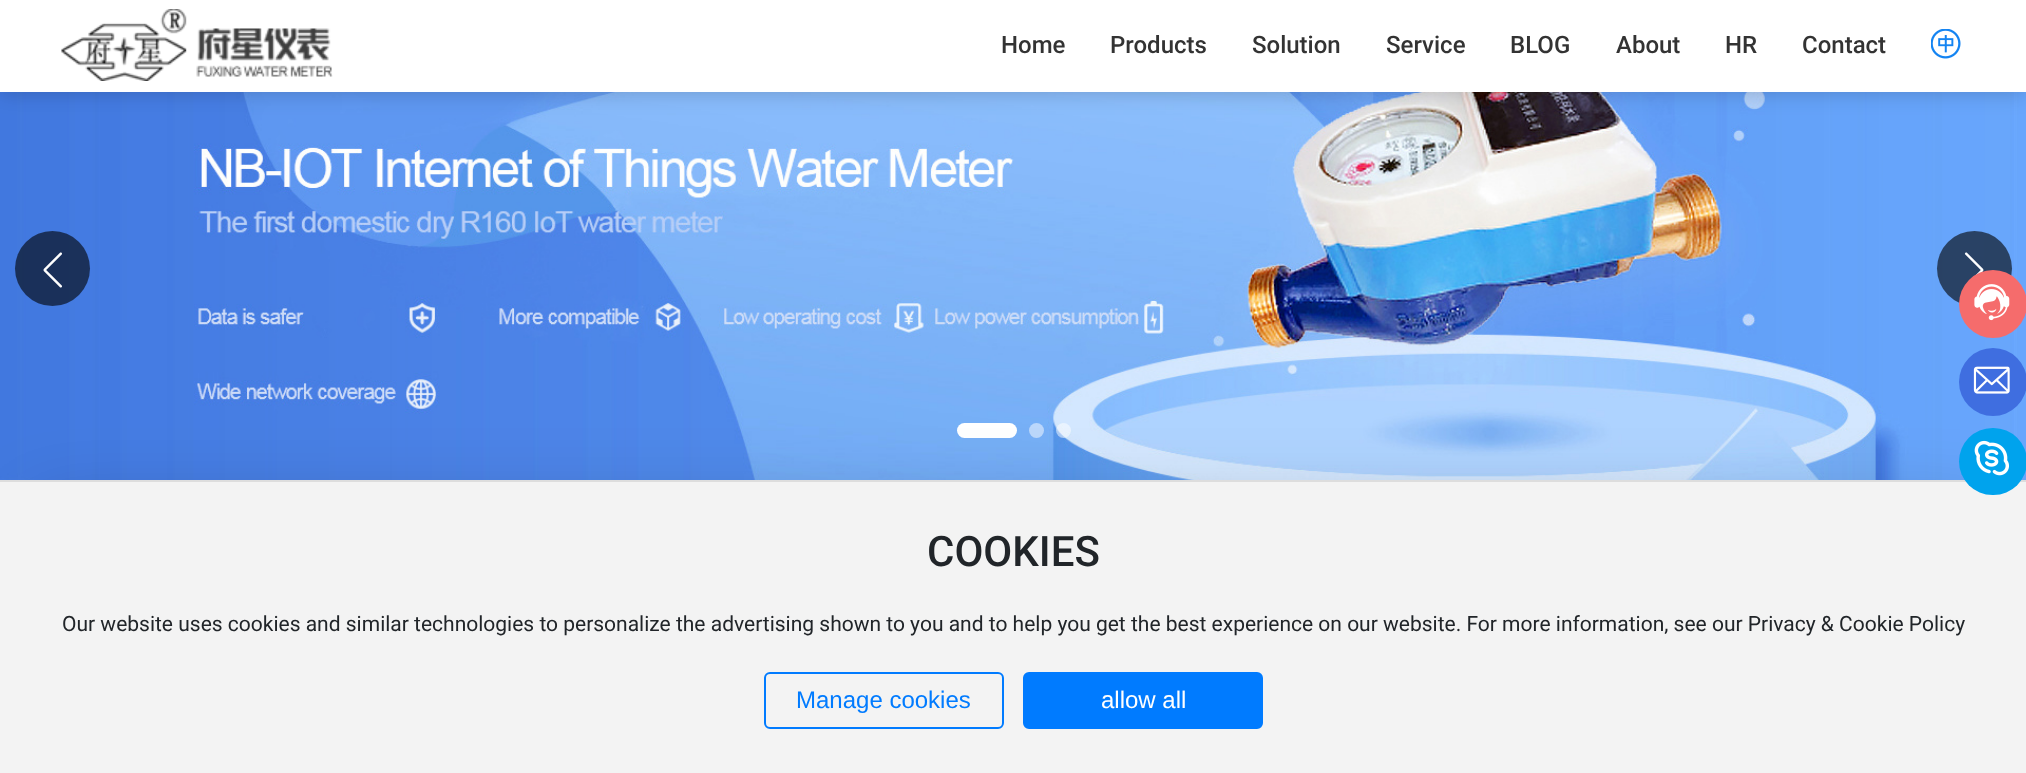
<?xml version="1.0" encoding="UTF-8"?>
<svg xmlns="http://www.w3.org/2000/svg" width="2026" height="773">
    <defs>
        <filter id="blur1" x="-50%" y="-200%" width="200%" height="500%"><feGaussianBlur stdDeviation="11"/></filter>
        <filter id="blur2" x="-50%" y="-200%" width="200%" height="500%"><feGaussianBlur stdDeviation="37.5"/></filter>
    </defs>
    <rect width="100%" height="100%" fill="#FFFFFF"/>
    <image x="0" y="92" width="2026" height="388" href="img_03.png"/>
    <rect x="0" y="0" width="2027" height="92" fill="#000000" fill-opacity="0.2" filter="url(#blur1)"/>
    <rect x="0" y="0" width="2026" height="92" fill="#FFFFFF"/>
    <image x="61" y="9" width="272" height="72" href="img_01.png"/>
    <text x="1001" y="53" font-family="Roboto" font-size="24" font-weight="500" fill="#333333">Home</text>
    <text x="1110" y="53" font-family="Roboto" font-size="24" font-weight="500" fill="#333333">Products</text>
    <text x="1252" y="53" font-family="Roboto" font-size="24" font-weight="500" fill="#333333">Solution</text>
    <text x="1386" y="53" font-family="Roboto" font-size="24" font-weight="500" fill="#333333">Service</text>
    <text x="1510" y="53" font-family="Roboto" font-size="24" font-weight="500" fill="#333333">BLOG</text>
    <text x="1616" y="53" font-family="Roboto" font-size="24" font-weight="500" fill="#333333">About</text>
    <text x="1725" y="53" font-family="Roboto" font-size="24" font-weight="500" fill="#333333">HR</text>
    <text x="1802" y="53" font-family="Roboto" font-size="24" font-weight="500" fill="#333333">Contact</text>
    <image x="1931" y="29" width="30" height="30" href="img_02.png"/>
    <circle cx="52.5" cy="268.5" r="37.5" fill="#000000" fill-opacity="0.6"/>
    <image x="43" y="252" width="19" height="36" href="img_04.png"/>
    <circle cx="1974.5" cy="268.5" r="37.5" fill="#000000" fill-opacity="0.6"/>
    <image x="1964" y="252" width="20" height="35" href="img_05.png"/>
    <rect x="957" y="423" width="60" height="15" rx="7.5" fill="#FFFFFF"/>
    <circle cx="1036.5" cy="430.5" r="7.5" fill="#BBD7FB"/>
    <circle cx="1063.5" cy="430.5" r="7.5" fill="#FFFFFF" fill-opacity="0.5"/>
    <rect x="32" y="506" width="1963" height="231" fill="#000000" fill-opacity="0.2" filter="url(#blur2)"/>
    <rect x="0" y="482" width="2026" height="291" fill="#F3F3F3"/>
    <rect x="0" y="480" width="2026" height="2" fill="#DDDDDD"/>
    <text x="927" y="566" font-family="Roboto" font-size="42" font-weight="500" fill="#212529">COOKIES</text>
    <text x="62" y="631" font-family="Roboto" font-size="21" fill="#212529">Our website uses cookies and similar technologies to personalize the advertising shown to you and to help you get the best experience on our website. For more information, see our Privacy &amp; Cookie Policy</text>
    <rect x="765" y="673" width="238" height="55" rx="5" fill="none" stroke="#007BFF" stroke-width="2"/>
    <text x="796" y="708" font-family="Liberation Sans" font-size="24" fill="#007BFF">Manage cookies</text>
    <rect x="1024" y="673" width="238" height="55" rx="5" fill="#007BFF" stroke="#007BFF" stroke-width="2"/>
    <text x="1101" y="708" font-family="Liberation Sans" font-size="24" fill="#FFFFFF">allow all</text>
    <circle cx="1993" cy="304" r="34" fill="#F56C6C"/>
    <image x="1974" y="284" width="36" height="37" href="img_06.png"/>
    <circle cx="1993" cy="382" r="34" fill="#3F6EE0"/>
    <image x="1973" y="366" width="37" height="28" href="img_07.png"/>
    <rect x="1959" y="428" width="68" height="67" rx="33.5" fill="#00A3ED"/>
    <image x="1974" y="440" width="35" height="36" href="img_08.png"/>
</svg>
